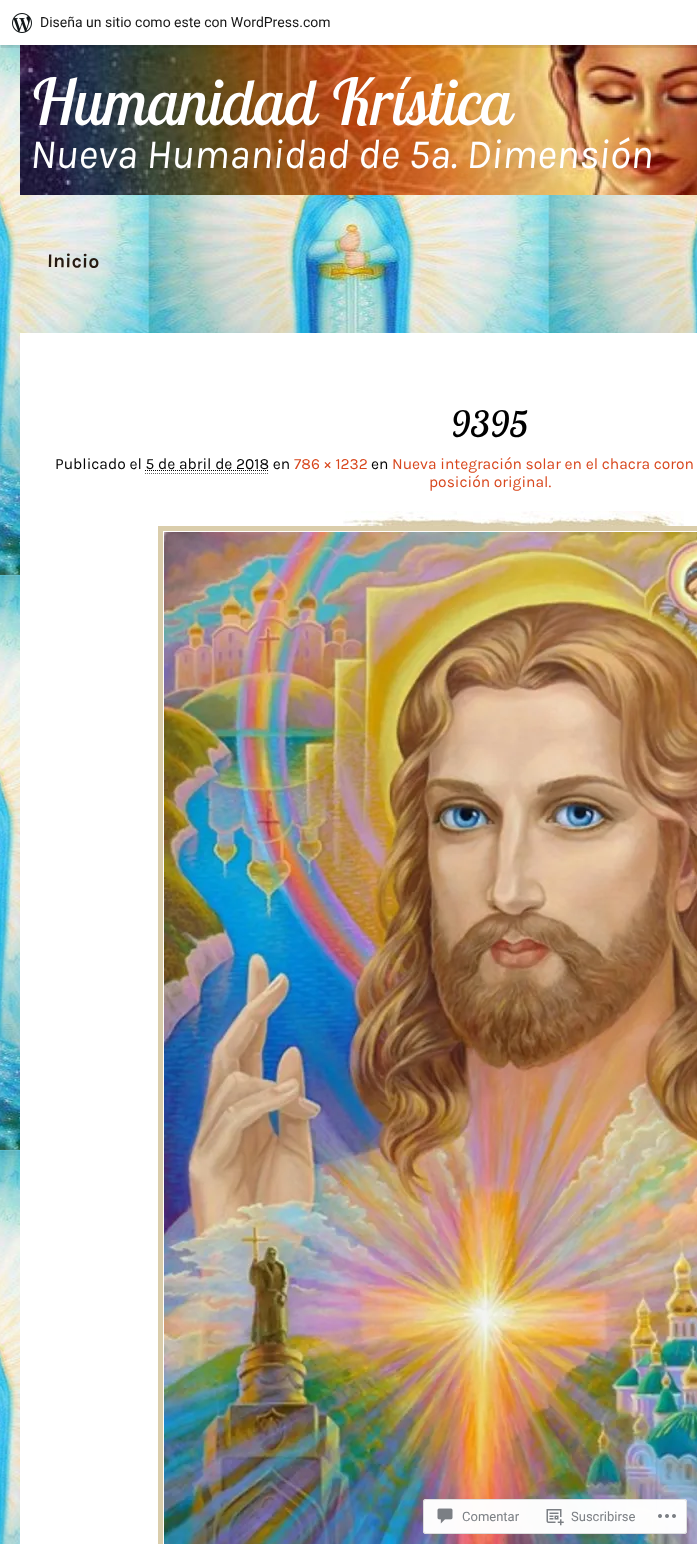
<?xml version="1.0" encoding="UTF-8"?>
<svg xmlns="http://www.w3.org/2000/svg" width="697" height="1544">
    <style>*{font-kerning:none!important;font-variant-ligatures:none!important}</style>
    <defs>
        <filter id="blur1" x="-50%" y="-200%" width="200%" height="500%"><feGaussianBlur stdDeviation="1"/></filter>
    </defs>
    <rect width="100%" height="100%" fill="#FFFFFF"/>
    <image x="0" y="45" width="697" height="1499" href="img_01.png"/>
    <image x="20" y="45" width="677" height="150" href="img_03.png"/>
    <rect x="0" y="1" width="697" height="45" fill="#000000" fill-opacity="0.05" filter="url(#blur1)"/>
    <path d="M 1 45 V 48 H 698 V 3 H 697 V 45 Z" fill="#000000" fill-opacity="0.08"/>
    <rect x="0" y="0" width="697" height="45" fill="#FFFFFF"/>
    <image x="12" y="13" width="20" height="20" href="img_02.png"/>
    <text x="40" y="27" font-family="Roboto" font-size="14" fill="#171717">Diseña un sitio como este con WordPress.com</text>
    <text x="30" y="125" font-family="Lobster Two" font-size="64" font-style="italic" fill="#FFFFFF">Humanidad Krística</text>
    <text x="30" y="168" font-family="Karla" font-size="41.6" font-style="italic" fill="#FFFFFF">Nueva Humanidad de 5a. Dimensión</text>
    <text x="47" y="267" transform="rotate(1 47 267)" font-family="Karla" font-size="19.5" font-weight="700" fill="#261A11">Inicio</text>
    <rect x="20" y="333" width="677" height="1211" fill="#FFFFFF"/>
    <text x="451" y="437" font-family="Lobster Two" font-size="36" font-style="italic" fill="#000000">9395</text>
    <text x="55" y="469" font-family="Karla" font-size="15.6" fill="#000000">Publicado el 5 de abril de 2018 en</text>
    <text x="294" y="469" font-family="Karla" font-size="15.6" fill="#D8471D">786 × 1232</text>
    <text x="371" y="469" font-family="Karla" font-size="15.6" fill="#000000">en</text>
    <text x="392" y="469" font-family="Karla" font-size="15.6" fill="#D8471D">Nueva integración solar en el chacra coron</text>
    <path d="M 145 470.5 H 268.5" fill="none" stroke="#000000" stroke-dasharray="1 1"/>
    <path d="M 145 473.5 H 269" fill="none" stroke="#666666" stroke-dasharray="1 1"/>
    <text x="429" y="487" font-family="Karla" font-size="15.6" fill="#D8471D">posición original.</text>
    <image x="343" y="511" width="341" height="15" href="img_04.png"/>
    <rect x="160.5" y="528.5" width="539" height="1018" fill="none" stroke="#DACDAB" stroke-width="5"/>
    <image x="164" y="532" width="533" height="1012" href="img_05.png"/>
    <rect x="423" y="1499" width="264" height="35" rx="3" fill="#FFFFFF" fill-opacity="0.98"/>
    <rect x="423.5" y="1499.5" width="263" height="34" rx="2.5" fill="none" stroke="#DCDCDE" stroke-opacity="0.98"/>
    <image x="437" y="1508" width="16" height="16" href="img_06.png"/>
    <text x="462" y="1521" font-family="Roboto" font-size="13" fill="#7B7F84">Comentar</text>
    <image x="546" y="1509" width="18" height="17" href="img_07.png"/>
    <text x="571" y="1521" font-family="Roboto" font-size="13" fill="#7B7F84">Suscribirse</text>
    <image x="658" y="1514" width="18" height="4" href="img_08.png"/>
</svg>
